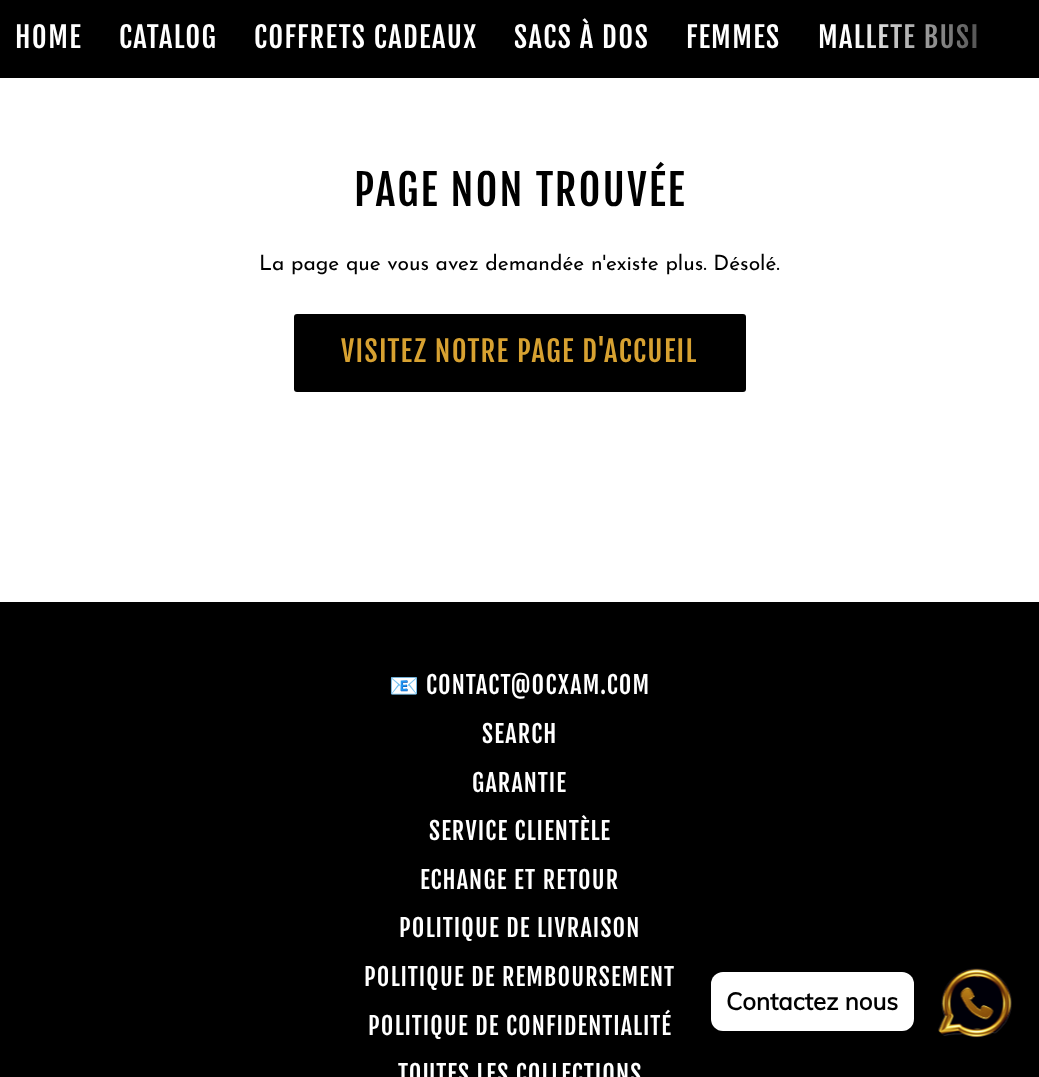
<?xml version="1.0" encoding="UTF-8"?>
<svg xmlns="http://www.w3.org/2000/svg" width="1039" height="1077">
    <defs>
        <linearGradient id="g1" gradientUnits="userSpaceOnUse" x1="852" y1="39" x2="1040" y2="39"><stop offset="0" stop-color="#000000" stop-opacity="0"/><stop offset="1" stop-color="#000000"/></linearGradient>
    </defs>
    <rect width="100%" height="100%" fill="#FFFFFF"/>
    <rect x="0" y="0" width="1039" height="78" fill="#000000"/>
    <text x="15" y="48" font-family="Fjalla One" font-size="28.5" letter-spacing="1.4" fill="#FFFFFF">HOME</text>
    <text x="119" y="48" font-family="Fjalla One" font-size="28.5" letter-spacing="1.4" fill="#FFFFFF">CATALOG</text>
    <text x="254" y="48" font-family="Fjalla One" font-size="28.5" letter-spacing="1.4" fill="#FFFFFF">COFFRETS CADEAUX</text>
    <text x="514" y="48" font-family="Fjalla One" font-size="28.5" letter-spacing="1.4" fill="#FFFFFF">SACS À DOS</text>
    <text x="686" y="48" font-family="Fjalla One" font-size="28.5" letter-spacing="1.4" fill="#FFFFFF">FEMMES</text>
    <text x="818" y="48" font-family="Fjalla One" font-size="28.5" letter-spacing="1.4" fill="#FFFFFF">MALLETE BUSI</text>
    <rect x="856" y="24" width="120" height="25" fill="url(#g1)"/>
    <text x="354" y="206" font-family="Fjalla One" font-size="42" letter-spacing="2.1" fill="#000000">PAGE NON TROUVÉE</text>
    <text x="259" y="270" font-family="Josefin Sans" font-size="21" fill="#000000">La page que vous avez demandée n'existe plus. Désolé.</text>
    <rect x="294" y="314" width="452" height="78" rx="3" fill="#000000"/>
    <text x="341" y="362" font-family="Fjalla One" font-size="28.5" letter-spacing="1.4" fill="#D7A131">VISITEZ NOTRE PAGE D'ACCUEIL</text>
    <rect x="0" y="602" width="1039" height="475" fill="#000000"/>
    <text x="389" y="694" font-family="Noto Color Emoji" font-size="24" letter-spacing="1.2" fill="#FFFFFF">📧</text>
    <text x="426" y="694" font-family="Fjalla One" font-size="24" letter-spacing="1.2" fill="#FFFFFF">CONTACT@OCXAM.COM</text>
    <text x="482" y="743" font-family="Fjalla One" font-size="24" letter-spacing="1.2" fill="#FFFFFF">SEARCH</text>
    <text x="472" y="792" font-family="Fjalla One" font-size="24" letter-spacing="1.2" fill="#FFFFFF">GARANTIE</text>
    <text x="429" y="840" font-family="Fjalla One" font-size="24" letter-spacing="1.2" fill="#FFFFFF">SERVICE CLIENTÈLE</text>
    <text x="420" y="889" font-family="Fjalla One" font-size="24" letter-spacing="1.2" fill="#FFFFFF">ECHANGE ET RETOUR</text>
    <text x="399" y="937" font-family="Fjalla One" font-size="24" letter-spacing="1.2" fill="#FFFFFF">POLITIQUE DE LIVRAISON</text>
    <text x="364" y="986" font-family="Fjalla One" font-size="24" letter-spacing="1.2" fill="#FFFFFF">POLITIQUE DE REMBOURSEMENT</text>
    <text x="368" y="1035" font-family="Fjalla One" font-size="24" letter-spacing="1.2" fill="#FFFFFF">POLITIQUE DE CONFIDENTIALITÉ</text>
    <text x="398" y="1083" font-family="Fjalla One" font-size="24" letter-spacing="1.2" fill="#FFFFFF">TOUTES LES COLLECTIONS</text>
    <image x="938" y="968" width="74" height="70" href="img_01.png"/>
    <rect x="711" y="972" width="203" height="59" rx="12" fill="#FFFFFF"/>
    <text x="726" y="1010" font-family="Muli" font-size="24" font-weight="700" fill="#000000">Contactez nous</text>
</svg>
